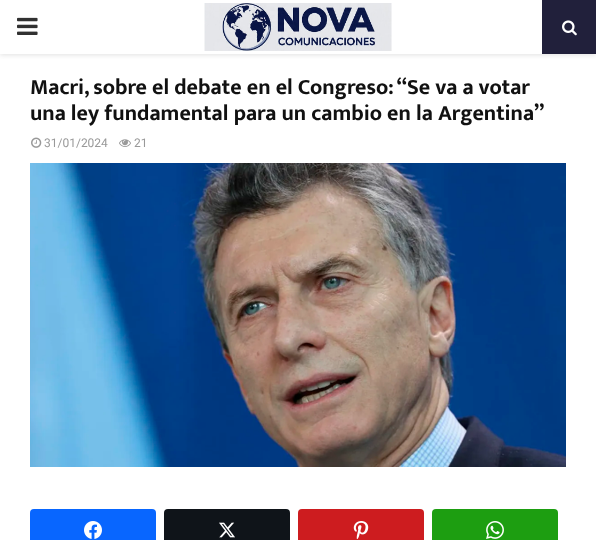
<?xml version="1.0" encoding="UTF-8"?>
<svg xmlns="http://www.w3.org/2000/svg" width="596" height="540">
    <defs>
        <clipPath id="clip1"><rect x="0" y="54" width="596" height="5"/></clipPath>
        <filter id="blur1" x="-50%" y="-200%" width="200%" height="500%"><feGaussianBlur stdDeviation="2.5"/></filter>
    </defs>
    <rect width="100%" height="100%" fill="#FFFFFF"/>
    <g clip-path="url(#clip1)">
        <rect x="0" y="1" width="596" height="54" fill="#BEBEBE" fill-opacity="0.46" filter="url(#blur1)"/>
    </g>
    <image x="17" y="17" width="21" height="18" href="img_01.png"/>
    <image x="204" y="3" width="188" height="48" href="img_02.png"/>
    <rect x="542" y="0" width="54" height="54" fill="#21203B"/>
    <image x="562" y="20" width="15" height="16" href="img_03.png"/>
    <text font-family="Mukta Vaani" font-size="22" font-weight="700" fill="#111111">
        <tspan x="30" y="94">Macri, sobre el debate en el Congreso: “Se va a votar</tspan>
        <tspan x="30" y="120">una ley fundamental para un cambio en la Argentina”</tspan>
    </text>
    <image x="31" y="137" width="11" height="11" href="img_04.png"/>
    <text x="44" y="147" font-family="Roboto" font-size="12" fill="#999999">31/01/2024</text>
    <image x="119" y="139" width="12" height="8" href="img_05.png"/>
    <text x="134" y="147" font-family="Roboto" font-size="12" fill="#999999">21</text>
    <image x="30" y="163" width="536" height="304" href="img_06.png"/>
    <rect x="30" y="509" width="126" height="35" rx="4" fill="#0866FF"/>
    <image x="84" y="521" width="18" height="18" href="img_07.png"/>
    <rect x="164" y="509" width="126" height="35" rx="4" fill="#0F1419"/>
    <image x="219" y="522" width="16" height="16" href="img_08.png"/>
    <rect x="298" y="509" width="126" height="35" rx="4" fill="#CD1C1F"/>
    <image x="353" y="521" width="16" height="18" href="img_09.png"/>
    <rect x="432" y="509" width="126" height="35" rx="4" fill="#1D9E11"/>
    <image x="486" y="521" width="18" height="18" href="img_10.png"/>
</svg>
